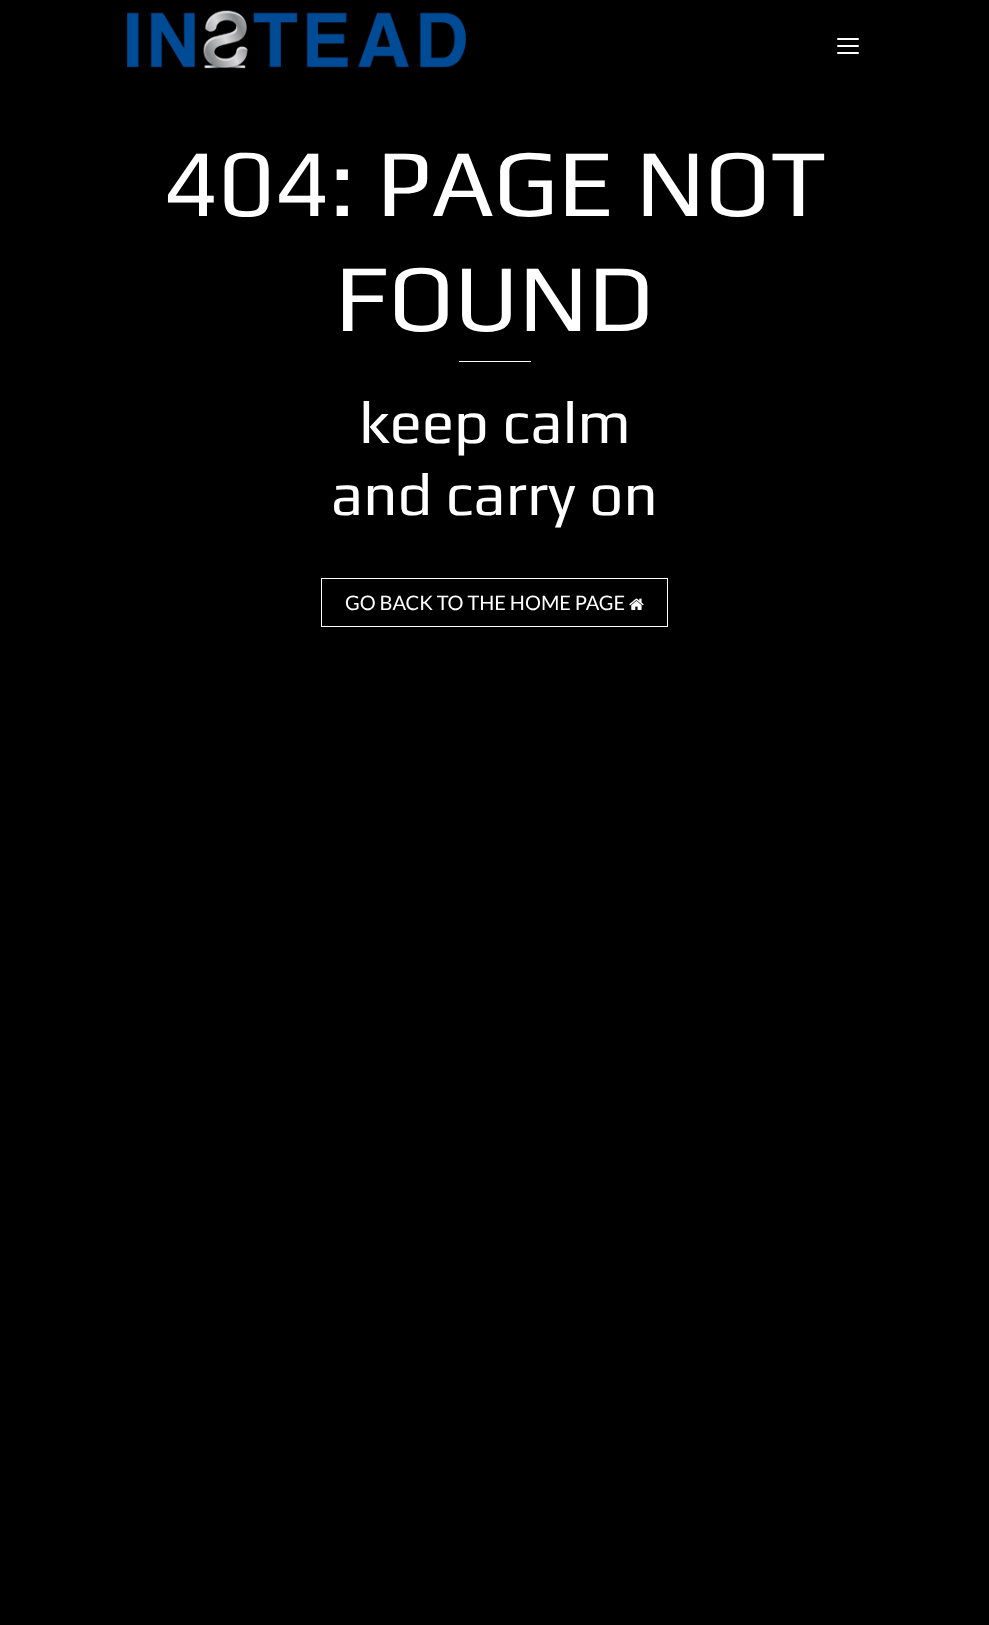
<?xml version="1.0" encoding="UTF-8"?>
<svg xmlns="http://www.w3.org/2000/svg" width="989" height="1625">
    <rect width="100%" height="100%" fill="#000000"/>
    <image x="127" y="10" width="339" height="59" href="img_01.png"/>
    <rect x="837" y="38" width="22" height="2" rx="1" fill="#FFFFFF"/>
    <rect x="837" y="45" width="22" height="2" rx="1" fill="#FFFFFF"/>
    <rect x="837" y="52" width="22" height="2" rx="1" fill="#FFFFFF"/>
    <text x="163" y="216" font-family="Play" font-size="96" fill="#FFFFFF">404: PAGE NOT</text>
    <text x="335" y="331" font-family="Play" font-size="96" fill="#FFFFFF">FOUND</text>
    <rect x="459" y="361" width="72" height="1" fill="#FFFFFF"/>
    <text x="359" y="443" font-family="Play" font-size="60" fill="#FFFFFF">keep calm</text>
    <text x="331" y="515" font-family="Play" font-size="60" fill="#FFFFFF">and carry on</text>
    <rect x="321.5" y="578.5" width="346" height="48" fill="none" stroke="#FFFFFF"/>
    <text x="345" y="610" font-family="Lato" font-size="20" fill="#FFFFFF">GO BACK TO THE HOME PAGE</text>
    <image x="629" y="598" width="15" height="12" href="img_02.png"/>
</svg>
